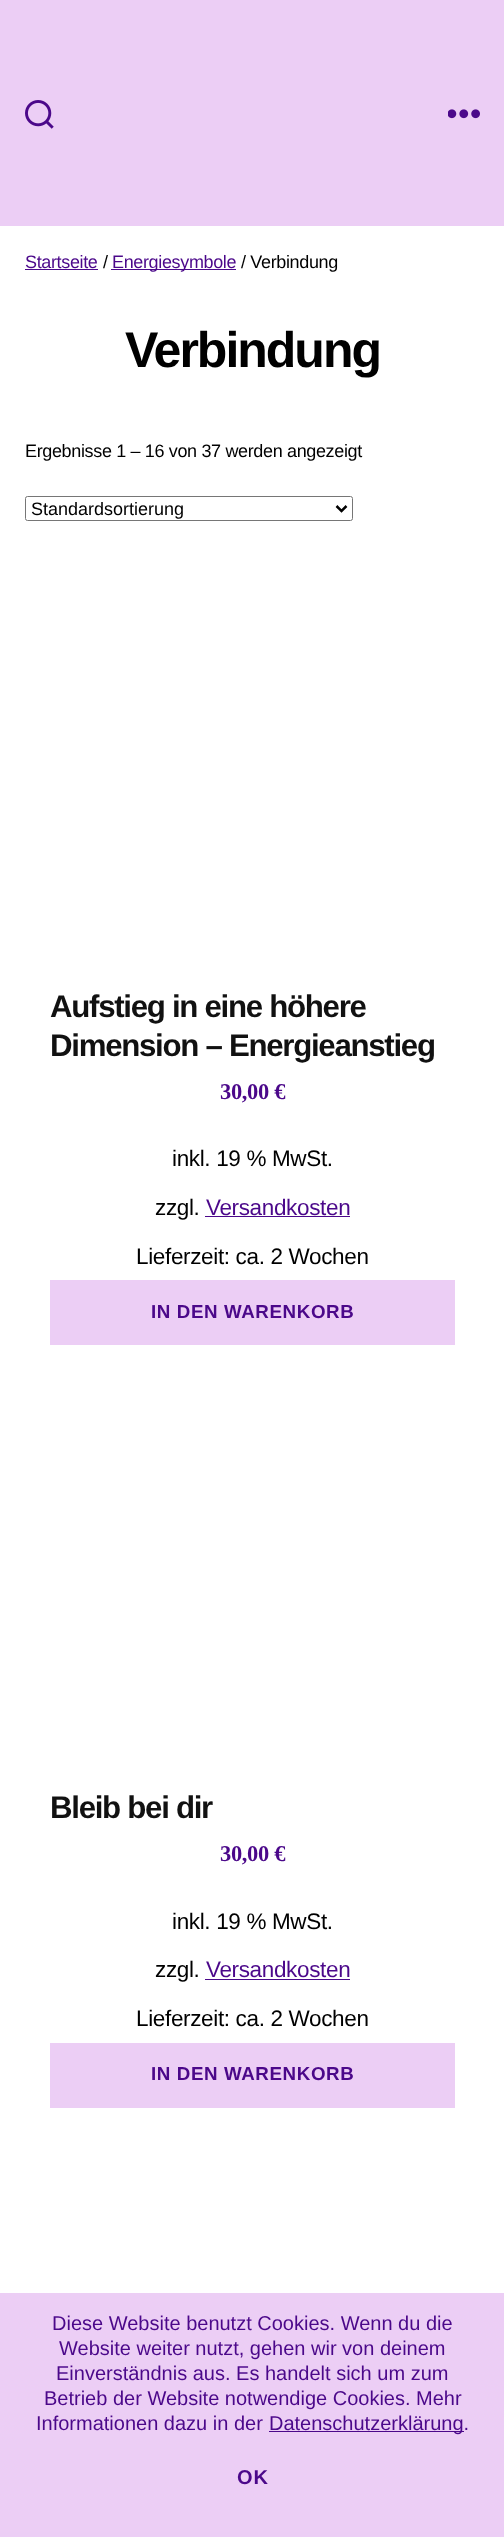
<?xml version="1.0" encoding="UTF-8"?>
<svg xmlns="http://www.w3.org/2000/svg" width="504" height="2537">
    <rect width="100%" height="100%" fill="#FFFFFF"/>
    <rect x="0" y="0" width="504" height="226" fill="#ECCEF5"/>
    <image x="25" y="100" width="29" height="29" href="img_01.png"/>
    <image x="448" y="109" width="32" height="10" href="img_02.png"/>
    <text x="25" y="268" font-family="Liberation Sans" font-size="18" letter-spacing="-0.35" fill="#4B088A">Startseite</text>
    <rect x="25" y="269" width="73" height="1" fill="#4B088A"/>
    <text x="103" y="268" font-family="Liberation Sans" font-size="18" letter-spacing="-0.35" fill="#000000">/</text>
    <rect x="111" y="269" width="125" height="1" fill="#4B088A"/>
    <text x="112" y="268" font-family="Liberation Sans" font-size="18" letter-spacing="-0.35" fill="#4B088A">Energiesymbole</text>
    <text x="241" y="268" font-family="Liberation Sans" font-size="18" letter-spacing="-0.35" fill="#000000">/ Verbindung</text>
    <text x="125" y="367" font-family="Liberation Sans" font-size="50" font-weight="700" letter-spacing="-2" fill="#000000">Verbindung</text>
    <text x="25" y="457" font-family="Liberation Sans" font-size="18" letter-spacing="-0.35" fill="#000000">Ergebnisse 1 – 16 von 37 werden angezeigt</text>
    <rect x="25.5" y="496.5" width="327" height="24" rx="2" fill="none" stroke="#767676"/>
    <path d="M 336.5 506 L 341.5 511 L 346.5 506" fill="none" stroke="#000000" stroke-width="2.5"/>
    <text x="31" y="515" font-family="Liberation Sans" font-size="18" fill="#000000">Standardsortierung</text>
    <text font-family="Liberation Sans" font-size="31.25" font-weight="700" letter-spacing="-1.3" fill="#111111">
        <tspan x="50" y="1017">Aufstieg in eine höhere</tspan>
        <tspan x="50" y="1056">Dimension – Energieanstieg</tspan>
    </text>
    <text x="220" y="1099" font-family="Liberation Serif" font-size="22.5" font-weight="700" letter-spacing="-0.35" fill="#4B088A">30,00 €</text>
    <text x="172" y="1166" font-family="Liberation Sans" font-size="22.5" letter-spacing="-0.35" fill="#000000">inkl. 19 % MwSt.</text>
    <text x="155" y="1215" font-family="Liberation Sans" font-size="22.5" letter-spacing="-0.35" fill="#000000">zzgl.</text>
    <text x="206" y="1215" font-family="Liberation Sans" font-size="22.5" letter-spacing="-0.35" fill="#4B088A">Versandkosten</text>
    <rect x="205" y="1216" width="145" height="1" fill="#4B088A"/>
    <text x="136" y="1264" font-family="Liberation Sans" font-size="22.5" letter-spacing="-0.35" fill="#000000">Lieferzeit: ca. 2 Wochen</text>
    <rect x="50" y="1280" width="405" height="65" fill="#ECCEF5"/>
    <text x="151" y="1318" font-family="Liberation Sans" font-size="18.75" font-weight="700" letter-spacing="0.6" fill="#4B088A">IN DEN WARENKORB</text>
    <text x="50" y="1818" font-family="Liberation Sans" font-size="31.25" font-weight="700" letter-spacing="-1.3" fill="#111111">Bleib bei dir</text>
    <text x="220" y="1861" font-family="Liberation Serif" font-size="22.5" font-weight="700" letter-spacing="-0.35" fill="#4B088A">30,00 €</text>
    <text x="172" y="1929" font-family="Liberation Sans" font-size="22.5" letter-spacing="-0.35" fill="#000000">inkl. 19 % MwSt.</text>
    <text x="155" y="1977" font-family="Liberation Sans" font-size="22.5" letter-spacing="-0.35" fill="#000000">zzgl.</text>
    <text x="206" y="1977" font-family="Liberation Sans" font-size="22.5" letter-spacing="-0.35" fill="#4B088A">Versandkosten</text>
    <rect x="205" y="1979" width="145" height="1" fill="#4B088A"/>
    <text x="136" y="2026" font-family="Liberation Sans" font-size="22.5" letter-spacing="-0.35" fill="#000000">Lieferzeit: ca. 2 Wochen</text>
    <rect x="50" y="2043" width="405" height="65" fill="#ECCEF5"/>
    <text x="151" y="2080" font-family="Liberation Sans" font-size="18.75" font-weight="700" letter-spacing="0.6" fill="#4B088A">IN DEN WARENKORB</text>
    <rect x="0" y="2293" width="504" height="244" fill="#ECCEF5"/>
    <text x="52" y="2330" font-family="Liberation Sans" font-size="20" fill="#4B088A">Diese Website benutzt Cookies. Wenn du die</text>
    <text x="59" y="2355" font-family="Liberation Sans" font-size="20" fill="#4B088A">Website weiter nutzt, gehen wir von deinem</text>
    <text x="56" y="2380" font-family="Liberation Sans" font-size="20" fill="#4B088A">Einverständnis aus. Es handelt sich um zum</text>
    <text x="44" y="2405" font-family="Liberation Sans" font-size="20" fill="#4B088A">Betrieb der Website notwendige Cookies. Mehr</text>
    <text x="36" y="2430" font-family="Liberation Sans" font-size="20" fill="#4B088A">Informationen dazu in der</text>
    <rect x="269" y="2431" width="195" height="1" fill="#4B088A"/>
    <text x="269" y="2430" font-family="Liberation Sans" font-size="20" fill="#4B088A">Datenschutzerklärung.</text>
    <text x="237" y="2484" font-family="Liberation Sans" font-size="20" font-weight="700" letter-spacing="1" fill="#4B088A">OK</text>
</svg>
